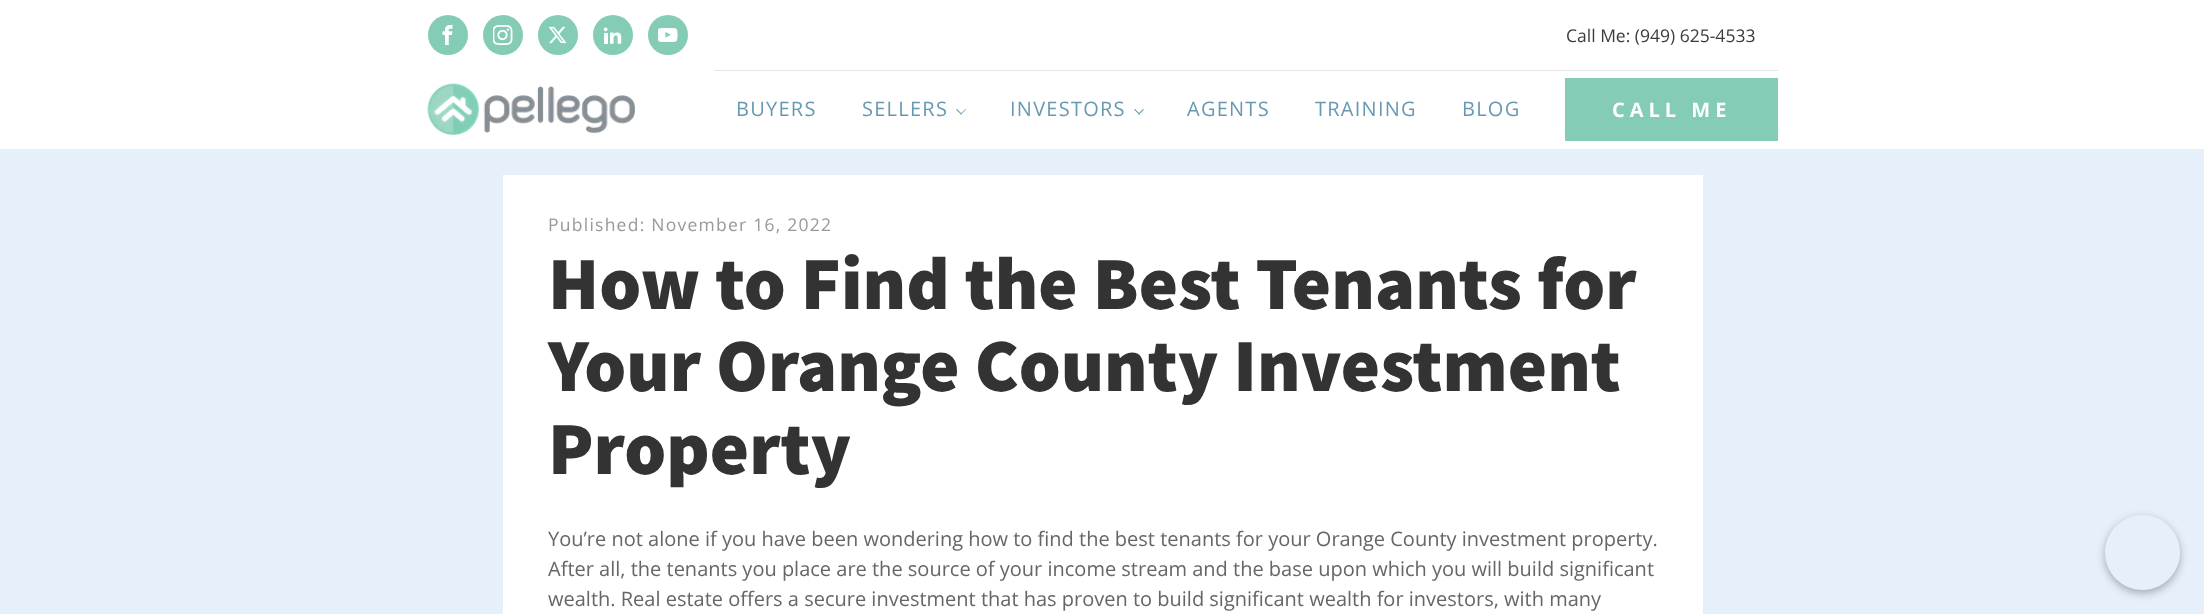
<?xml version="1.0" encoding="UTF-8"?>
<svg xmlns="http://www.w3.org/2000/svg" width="2204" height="614">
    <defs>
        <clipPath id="clip1"><path d="M 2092 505 H 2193 V 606 H 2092 Z M 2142.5 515 C 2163 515 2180 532 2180 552.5 C 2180 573 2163 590 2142.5 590 C 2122 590 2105 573 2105 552.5 C 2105 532 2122 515 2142.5 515 Z" clip-rule="evenodd"/></clipPath>
        <filter id="blur1" x="-50%" y="-200%" width="200%" height="500%"><feGaussianBlur stdDeviation="4"/></filter>
    </defs>
    <rect width="100%" height="100%" fill="#FFFFFF"/>
    <circle cx="448" cy="35" r="20" fill="#84CCB5"/>
    <image x="442" y="25" width="11" height="20" href="img_01.png"/>
    <circle cx="503" cy="35" r="20" fill="#84CCB5"/>
    <image x="493" y="25" width="20" height="20" href="img_02.png"/>
    <circle cx="558" cy="35" r="20" fill="#84CCB5"/>
    <image x="548" y="26" width="19" height="18" href="img_03.png"/>
    <circle cx="613" cy="35" r="20" fill="#84CCB5"/>
    <image x="603" y="27" width="19" height="17" href="img_04.png"/>
    <circle cx="668" cy="35" r="20" fill="#84CCB5"/>
    <image x="658" y="28" width="20" height="14" href="img_05.png"/>
    <text x="1566" y="42" font-family="Open Sans" font-size="17.5" fill="#3B3C38">Call Me: (949) 625-4533</text>
    <image x="427" y="83" width="208" height="52" href="img_06.png"/>
    <rect x="714" y="70" width="1064" height="1" fill="#E6E6E6"/>
    <text x="736" y="116" font-family="Open Sans" font-size="20" letter-spacing="1.25" fill="#6799B2">BUYERS</text>
    <text x="862" y="116" font-family="Open Sans" font-size="20" letter-spacing="1.25" fill="#6799B2">SELLERS</text>
    <path d="M 966 109.5 L 961 114.5 L 960.5 114 L 965.5 109 Z" fill="#6799B2"/>
    <path d="M 962 114 L 961 114.5 L 956 109.5 L 957 109 Z" fill="#6799B2"/>
    <text x="1010" y="116" font-family="Open Sans" font-size="20" letter-spacing="1.25" fill="#6799B2">INVESTORS</text>
    <path d="M 1144 109.5 L 1139 114.5 L 1138 114 L 1143 109 Z" fill="#6799B2"/>
    <path d="M 1140 114 L 1139 114.5 L 1134 109.5 L 1135 109 Z" fill="#6799B2"/>
    <text x="1187" y="116" font-family="Open Sans" font-size="20" letter-spacing="1.25" fill="#6799B2">AGENTS</text>
    <text x="1315" y="116" font-family="Open Sans" font-size="20" letter-spacing="1.25" fill="#6799B2">TRAINING</text>
    <text x="1462" y="116" font-family="Open Sans" font-size="20" letter-spacing="1.25" fill="#6799B2">BLOG</text>
    <rect x="1565" y="78" width="213" height="63" fill="#84CCB5"/>
    <text x="1612" y="117" font-family="Open Sans" font-size="20" font-weight="700" letter-spacing="5" fill="#FFFFFF">CALL ME</text>
    <rect x="0" y="149" width="2204" height="465" fill="#E6F0FA"/>
    <rect x="503" y="175" width="1200" height="439" fill="#FFFFFF"/>
    <text x="548" y="231" font-family="Open Sans" font-size="17.5" letter-spacing="1.25" fill="#999999">Published: November 16, 2022</text>
    <text font-family="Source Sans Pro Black" font-size="75" font-weight="900" fill="#333333">
        <tspan x="548" y="309">How to Find the Best Tenants for</tspan>
        <tspan x="548" y="391">Your Orange County Investment</tspan>
        <tspan x="548" y="474">Property</tspan>
    </text>
    <text font-family="Open Sans" font-size="20" fill="#666666">
        <tspan x="548" y="546">You’re not alone if you have been wondering how to find the best tenants for your Orange County investment property.</tspan>
        <tspan x="548" y="576">After all, the tenants you place are the source of your income stream and the base upon which you will build significant</tspan>
        <tspan x="548" y="606">wealth. Real estate offers a secure investment that has proven to build significant wealth for investors, with many</tspan>
    </text>
    <g clip-path="url(#clip1)">
        <rect x="2105" y="518" width="75" height="75" rx="37.5" fill="#000000" fill-opacity="0.3" filter="url(#blur1)"/>
    </g>
</svg>
